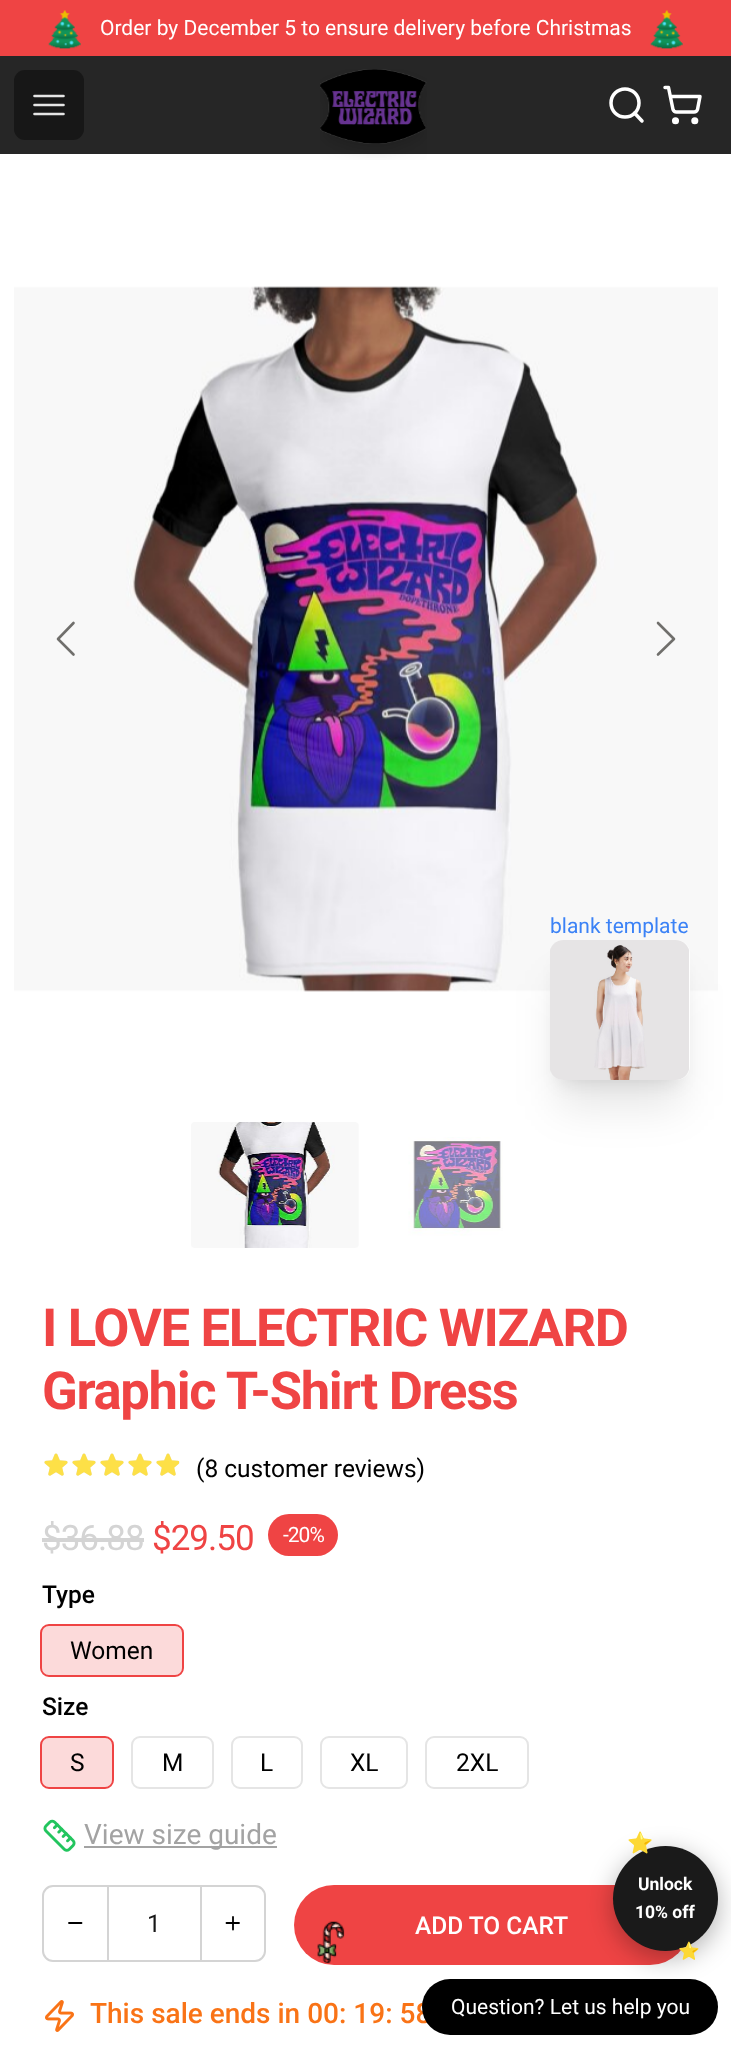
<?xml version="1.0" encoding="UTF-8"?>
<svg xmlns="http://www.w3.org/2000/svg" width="731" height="2048">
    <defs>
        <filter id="blur1" x="-50%" y="-200%" width="200%" height="500%"><feGaussianBlur stdDeviation="9"/></filter>
        <filter id="blur2" x="-50%" y="-200%" width="200%" height="500%"><feGaussianBlur stdDeviation="22"/></filter>
        <filter id="blur3" x="-50%" y="-200%" width="200%" height="500%"><feGaussianBlur stdDeviation="13"/></filter>
    </defs>
    <rect width="100%" height="100%" fill="#FFFFFF"/>
    <rect x="0" y="0" width="731" height="56" fill="#EF4444"/>
    <image x="48" y="10" width="33" height="39" href="img_01.png"/>
    <text x="100" y="35" font-family="Roboto" font-size="21" fill="#FFFFFF">Order by December 5 to ensure delivery before Christmas</text>
    <image x="650" y="10" width="33" height="39" href="img_02.png"/>
    <rect x="0" y="56" width="731" height="98" fill="#262626"/>
    <rect x="14" y="70" width="70" height="70" rx="11" fill="#171717"/>
    <path d="M 34.5 96 H 63.5 M 34.5 105 H 63.5 M 34.5 114 H 63.5" fill="none" stroke="#E5E5E5" stroke-width="2.6" stroke-linecap="round" stroke-linejoin="round"/>
    <image x="320" y="69" width="107" height="91" href="img_03.png"/>
    <path d="M 642 121 L 634.5 113" fill="none" stroke="#FFFFFF" stroke-width="3.5" stroke-linecap="round" stroke-linejoin="round"/>
    <circle cx="625" cy="103" r="14" fill="none" stroke="#FFFFFF" stroke-width="3.5"/>
    <circle cx="675.5" cy="120.8" r="1.8" fill="none" stroke="#FFFFFF" stroke-width="3.5"/>
    <circle cx="694.8" cy="120.8" r="1.8" fill="none" stroke="#FFFFFF" stroke-width="3.5"/>
    <path d="M 665 87.5 H 668.5 L 673 109.5 C 673.5 111 675 112 676.5 112 H 694 C 695.5 112 697 111 697.5 109.5 L 700 96.5 H 670.5" fill="none" stroke="#FFFFFF" stroke-width="3.5" stroke-linecap="round" stroke-linejoin="round"/>
    <image x="14" y="286" width="704" height="706" href="img_04.png"/>
    <path d="M 73.5 623 L 58 639 L 73.5 654.5" fill="none" stroke="#706F6C" stroke-width="2.6" stroke-linecap="round" stroke-linejoin="round"/>
    <path d="M 658 623 L 674 639 L 658 654.5" fill="none" stroke="#706F6C" stroke-width="2.6" stroke-linecap="round" stroke-linejoin="round"/>
    <rect x="560" y="964" width="119" height="119" rx="4" fill="#000000" fill-opacity="0.1" filter="url(#blur1)"/>
    <rect x="558" y="984" width="123" height="122" rx="5" fill="#000000" fill-opacity="0.1" filter="url(#blur2)"/>
    <rect x="550" y="940" width="140" height="140" rx="14" fill="#FFFFFF"/>
    <image x="550" y="940" width="139" height="140" href="img_05.png"/>
    <text x="550" y="933" font-family="Roboto" font-size="21" fill="#3B82F6">blank template</text>
    <image x="191" y="1122" width="168" height="126" href="img_06.png"/>
    <image x="408" y="1137" width="95" height="99" href="img_07.png"/>
    <text font-family="Roboto" font-size="52.5" font-weight="700" letter-spacing="-1.3" fill="#EF4444">
        <tspan x="42" y="1346">I LOVE ELECTRIC WIZARD</tspan>
        <tspan x="42" y="1409">Graphic T-Shirt Dress</tspan>
    </text>
    <image x="44" y="1453" width="24" height="23" href="img_08.png"/>
    <image x="72" y="1453" width="24" height="23" href="img_08.png"/>
    <image x="100" y="1453" width="24" height="23" href="img_08.png"/>
    <image x="128" y="1453" width="24" height="23" href="img_08.png"/>
    <image x="156" y="1453" width="24" height="23" href="img_08.png"/>
    <image x="44" y="1453" width="24" height="23" href="img_09.png"/>
    <image x="72" y="1453" width="24" height="23" href="img_09.png"/>
    <image x="100" y="1453" width="24" height="23" href="img_09.png"/>
    <image x="128" y="1453" width="24" height="23" href="img_09.png"/>
    <image x="156" y="1453" width="23" height="23" href="img_10.png"/>
    <text x="196" y="1477" font-family="Roboto" font-size="24.5" fill="#000000">(8 customer reviews)</text>
    <text x="42" y="1550" font-family="Roboto" font-size="35" letter-spacing="-1" fill="#D4D4D4">$36.88</text>
    <rect x="42" y="1538" width="102" height="4" fill="#D4D4D4"/>
    <text x="152" y="1550" font-family="Roboto" font-size="35" letter-spacing="-1" fill="#EF4444">$29.50</text>
    <rect x="268" y="1514" width="70" height="42" rx="21" fill="#EF4444"/>
    <text x="283" y="1542" font-family="Roboto" font-size="21" letter-spacing="-1" fill="#FFFFFF">-20%</text>
    <text x="42" y="1603" font-family="Roboto" font-size="24.5" font-weight="500" fill="#000000">Type</text>
    <rect x="41" y="1625" width="142" height="51" rx="8" fill="none" stroke="#EF4444" stroke-width="2"/>
    <rect x="42" y="1626" width="140" height="49" rx="7" fill="#EF4444" fill-opacity="0.2"/>
    <text x="70" y="1659" font-family="Roboto" font-size="24.5" fill="#000000">Women</text>
    <text x="42" y="1715" font-family="Roboto" font-size="24.5" font-weight="500" fill="#000000">Size</text>
    <rect x="41" y="1737" width="72" height="51" rx="8" fill="none" stroke="#EF4444" stroke-width="2"/>
    <rect x="42" y="1738" width="70" height="49" rx="7" fill="#EF4444" fill-opacity="0.2"/>
    <text x="70" y="1771" font-family="Roboto" font-size="24.5" fill="#000000">S</text>
    <rect x="132" y="1737" width="81" height="51" rx="8" fill="none" stroke="#E5E5E5" stroke-width="2"/>
    <text x="162" y="1771" font-family="Roboto" font-size="24.5" fill="#000000">M</text>
    <rect x="232" y="1737" width="70" height="51" rx="8" fill="none" stroke="#E5E5E5" stroke-width="2"/>
    <text x="260" y="1771" font-family="Roboto" font-size="24.5" fill="#000000">L</text>
    <rect x="321" y="1737" width="86" height="51" rx="8" fill="none" stroke="#E5E5E5" stroke-width="2"/>
    <text x="350" y="1771" font-family="Roboto" font-size="24.5" fill="#000000">XL</text>
    <rect x="426" y="1737" width="102" height="51" rx="8" fill="none" stroke="#E5E5E5" stroke-width="2"/>
    <text x="456" y="1771" font-family="Roboto" font-size="24.5" fill="#000000">2XL</text>
    <image x="43" y="1819" width="33" height="33" href="img_11.png"/>
    <rect x="84" y="1846" width="193" height="2" fill="#A3A3A3"/>
    <text x="84" y="1844" font-family="Roboto" font-size="28" fill="#A3A3A3">View size guide</text>
    <path d="M 53 1886 H 108 V 1961 H 53 C 47.5 1961 43 1956.5 43 1951 V 1896 C 43 1890.5 47.5 1886 53 1886 Z" fill="none" stroke="#D4D4D4" stroke-width="2"/>
    <path d="M 69 1923 H 81.5" fill="none" stroke="#000000" stroke-width="1.8" stroke-linecap="round" stroke-linejoin="round"/>
    <rect x="109" y="1885" width="91" height="2" fill="#D4D4D4"/>
    <rect x="109" y="1960" width="91" height="2" fill="#D4D4D4"/>
    <text x="147" y="1932" font-family="Roboto" font-size="24.5" fill="#171717">1</text>
    <path d="M 201 1886 H 255 C 260.5 1886 265 1890.5 265 1896 V 1951 C 265 1956.5 260.5 1961 255 1961 H 201 Z" fill="none" stroke="#D4D4D4" stroke-width="2"/>
    <path d="M 226.5 1923 H 239 M 233 1917 V 1929.5" fill="none" stroke="#000000" stroke-width="1.8" stroke-linecap="round" stroke-linejoin="round"/>
    <rect x="294" y="1885" width="396" height="80" rx="40" fill="#EF4444"/>
    <image x="317" y="1921" width="28" height="43" href="img_12.png"/>
    <text x="415" y="1934" font-family="Roboto" font-size="24.5" font-weight="500" fill="#FFFFFF">ADD TO CART</text>
    <image x="45" y="2000" width="29" height="32" href="img_13.png"/>
    <text x="90" y="2023" font-family="Roboto" font-size="28" font-weight="500" fill="#F97316">This sale ends in 00: 19: 58</text>
    <rect x="422" y="1979" width="296" height="56" rx="28" fill="#000000"/>
    <rect x="613" y="1853" width="105" height="105" rx="52.5" fill="#000000" fill-opacity="0.3" filter="url(#blur3)"/>
    <circle cx="665.5" cy="1898.5" r="52.5" fill="#1A1A1A"/>
    <text x="627" y="1850" font-family="Noto Color Emoji" font-size="21" font-weight="700" fill="#FFD700">⭐</text>
    <text x="638" y="1890" font-family="Roboto" font-size="17.5" font-weight="700" fill="#FFFFFF">Unlock</text>
    <text x="635" y="1918" font-family="Roboto" font-size="17.5" font-weight="700" fill="#FFFFFF">10% off</text>
    <text x="678" y="1957" font-family="Noto Color Emoji" font-size="17.5" font-weight="700" fill="#FFD700">⭐</text>
    <text x="451" y="2014" font-family="Roboto" font-size="21" fill="#FFFFFF">Question? Let us help you</text>
</svg>
